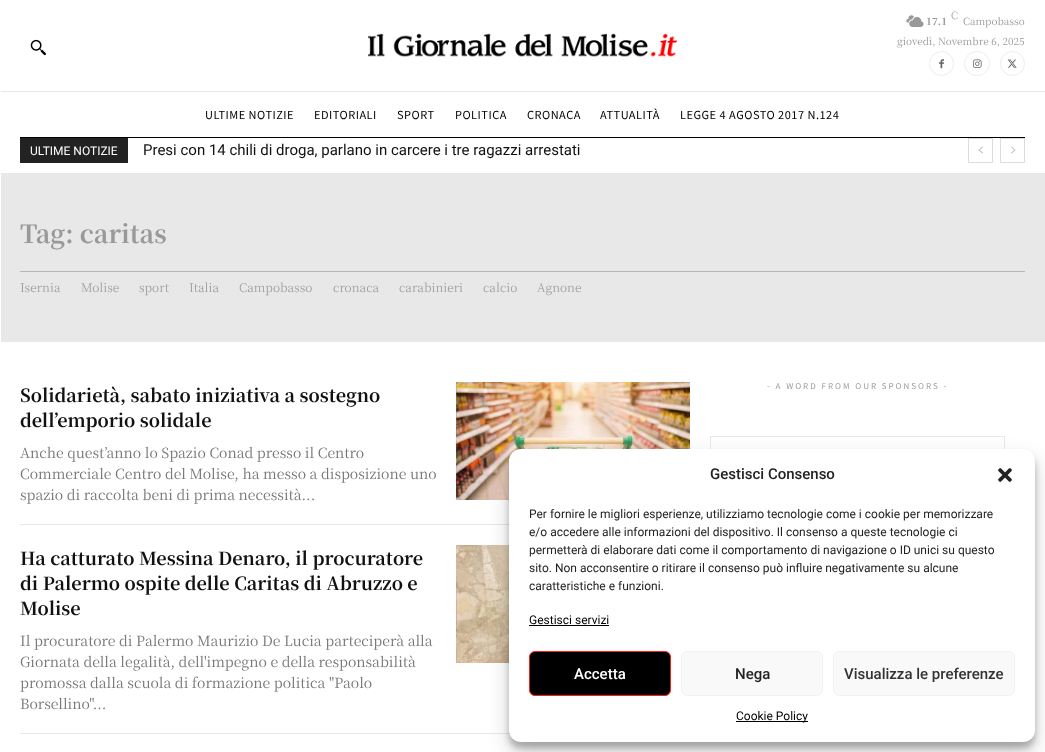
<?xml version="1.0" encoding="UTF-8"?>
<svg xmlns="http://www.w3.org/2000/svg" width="1045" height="752">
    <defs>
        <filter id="blur1" x="-50%" y="-200%" width="200%" height="500%"><feGaussianBlur stdDeviation="3"/></filter>
        <filter id="blur2" x="-50%" y="-200%" width="200%" height="500%"><feGaussianBlur stdDeviation="10"/></filter>
    </defs>
    <rect width="100%" height="100%" fill="#FFFFFF"/>
    <image x="30" y="39" width="16" height="17" href="img_01.png"/>
    <image x="368" y="33" width="309" height="24" href="img_02.png"/>
    <image x="906" y="15" width="18" height="12" href="img_03.png"/>
    <text x="951" y="19" font-family="Noto Serif JP" font-size="10" font-weight="300" fill="#999999">C</text>
    <text x="926" y="25" font-family="Noto Serif JP" font-size="10" font-weight="700" fill="#999999">17.1</text>
    <text x="963" y="25" font-family="Noto Serif JP" font-size="10" fill="#999999">Campobasso</text>
    <text x="897" y="45" font-family="Noto Serif JP" font-size="10" fill="#999999">giovedì, Novembre 6, 2025</text>
    <circle cx="941.5" cy="63.5" r="12" fill="none" stroke="#EDEDED"/>
    <image x="939" y="59" width="5" height="10" href="img_04.png"/>
    <rect x="964.5" y="51.5" width="25" height="24" rx="12" fill="none" stroke="#EDEDED"/>
    <image x="973" y="59" width="9" height="9" href="img_05.png"/>
    <circle cx="1012.5" cy="63.5" r="12" fill="none" stroke="#EDEDED"/>
    <image x="1007" y="59" width="10" height="9" href="img_06.png"/>
    <rect x="1" y="91" width="1044" height="1" fill="#E8E8E8"/>
    <text x="205" y="119" font-family="Noto Sans JP" font-size="11" font-weight="100" letter-spacing="0.5" fill="#000000">ULTIME NOTIZIE</text>
    <text x="314" y="119" font-family="Noto Sans JP" font-size="11" font-weight="100" letter-spacing="0.5" fill="#000000">EDITORIALI</text>
    <text x="397" y="119" font-family="Noto Sans JP" font-size="11" font-weight="100" letter-spacing="0.5" fill="#000000">SPORT</text>
    <text x="455" y="119" font-family="Noto Sans JP" font-size="11" font-weight="100" letter-spacing="0.5" fill="#000000">POLITICA</text>
    <text x="527" y="119" font-family="Noto Sans JP" font-size="11" font-weight="100" letter-spacing="0.5" fill="#000000">CRONACA</text>
    <text x="600" y="119" font-family="Noto Sans JP" font-size="11" font-weight="100" letter-spacing="0.5" fill="#000000">ATTUALITÀ</text>
    <text x="680" y="119" font-family="Noto Sans JP" font-size="11" font-weight="100" letter-spacing="0.5" fill="#000000">LEGGE 4 AGOSTO 2017 N.124</text>
    <rect x="20" y="137" width="1005" height="1" fill="#000000"/>
    <rect x="20" y="138" width="108" height="25" fill="#222222"/>
    <text x="30" y="155" font-family="Roboto" font-size="12" fill="#FFFFFF">ULTIME NOTIZIE</text>
    <text x="143" y="155" font-family="Roboto" font-size="15" fill="#111111">Presi con 14 chili di droga, parlano in carcere i tre ragazzi arrestati</text>
    <rect x="968.5" y="138.5" width="24" height="24" fill="none" stroke="#DCDCDC"/>
    <image x="978" y="146" width="5" height="8" href="img_07.png"/>
    <rect x="1000.5" y="138.5" width="24" height="24" fill="none" stroke="#DCDCDC"/>
    <image x="1011" y="146" width="5" height="8" href="img_08.png"/>
    <rect x="1" y="173" width="1044" height="169" fill="#E8E8E8"/>
    <text x="20" y="243" font-family="Noto Serif JP" font-size="25" font-weight="700" fill="#999999">Tag: caritas</text>
    <rect x="20" y="271" width="1005" height="1" fill="#B7B7B7"/>
    <text x="20" y="292" font-family="Noto Serif JP" font-size="12" font-weight="300" fill="#999999">Isernia</text>
    <text x="81" y="292" font-family="Noto Serif JP" font-size="12" font-weight="300" fill="#999999">Molise</text>
    <text x="139" y="292" font-family="Noto Serif JP" font-size="12" font-weight="300" fill="#999999">sport</text>
    <text x="189" y="292" font-family="Noto Serif JP" font-size="12" font-weight="300" fill="#999999">Italia</text>
    <text x="239" y="292" font-family="Noto Serif JP" font-size="12" font-weight="300" fill="#999999">Campobasso</text>
    <text x="333" y="292" font-family="Noto Serif JP" font-size="12" font-weight="300" fill="#999999">cronaca</text>
    <text x="399" y="292" font-family="Noto Serif JP" font-size="12" font-weight="300" fill="#999999">carabinieri</text>
    <text x="483" y="292" font-family="Noto Serif JP" font-size="12" font-weight="300" fill="#999999">calcio</text>
    <text x="537" y="292" font-family="Noto Serif JP" font-size="12" font-weight="300" fill="#999999">Agnone</text>
    <text font-family="Noto Serif JP" font-size="18" font-weight="700" fill="#111111">
        <tspan x="20" y="402">Solidarietà, sabato iniziativa a sostegno</tspan>
        <tspan x="20" y="427">dell’emporio solidale</tspan>
    </text>
    <text font-family="Noto Serif JP" font-size="14" fill="#767676">
        <tspan x="20" y="458">Anche quest’anno lo Spazio Conad presso il Centro</tspan>
        <tspan x="20" y="479">Commerciale Centro del Molise, ha messo a disposizione uno</tspan>
        <tspan x="20" y="500">spazio di raccolta beni di prima necessità...</tspan>
    </text>
    <image x="456" y="382" width="234" height="118" href="img_09.png"/>
    <rect x="20" y="524" width="489" height="1" fill="#E8E8E8"/>
    <text font-family="Noto Serif JP" font-size="18" font-weight="700" fill="#111111">
        <tspan x="20" y="565">Ha catturato Messina Denaro, il procuratore</tspan>
        <tspan x="20" y="590">di Palermo ospite delle Caritas di Abruzzo e</tspan>
        <tspan x="20" y="615">Molise</tspan>
    </text>
    <text font-family="Noto Serif JP" font-size="14" fill="#767676">
        <tspan x="20" y="646">Il procuratore di Palermo Maurizio De Lucia parteciperà alla</tspan>
        <tspan x="20" y="667">Giornata della legalità, dell'impegno e della responsabilità</tspan>
        <tspan x="20" y="688">promossa dalla scuola di formazione politica "Paolo</tspan>
        <tspan x="20" y="709">Borsellino"...</tspan>
    </text>
    <image x="456" y="545" width="53" height="118" href="img_10.png"/>
    <rect x="20" y="733" width="490" height="1" fill="#E8E8E8"/>
    <text x="767" y="389" font-family="Noto Sans JP" font-size="8" font-weight="100" letter-spacing="2" fill="#999999">- A WORD FROM OUR SPONSORS -</text>
    <rect x="710.5" y="436.5" width="294" height="201" fill="none" stroke="#E8E8E8"/>
    <rect x="509" y="455" width="526" height="293" rx="12" fill="#000000" fill-opacity="0.23" filter="url(#blur1)"/>
    <rect x="509" y="459" width="526" height="293" rx="12" fill="#000000" fill-opacity="0.19" filter="url(#blur2)"/>
    <rect x="509" y="449" width="526" height="293" rx="12" fill="#FFFFFF"/>
    <text x="710" y="479" font-family="Roboto" font-size="15" font-weight="500" fill="#222222">Gestisci Consenso</text>
    <image x="998" y="468" width="14" height="14" href="img_11.png"/>
    <text font-family="Roboto" font-size="12" fill="#222222">
        <tspan x="529" y="518">Per fornire le migliori esperienze, utilizziamo tecnologie come i cookie per memorizzare</tspan>
        <tspan x="529" y="536">e/o accedere alle informazioni del dispositivo. Il consenso a queste tecnologie ci</tspan>
        <tspan x="529" y="554">permetterà di elaborare dati come il comportamento di navigazione o ID unici su questo</tspan>
        <tspan x="529" y="572">sito. Non acconsentire o ritirare il consenso può influire negativamente su alcune</tspan>
        <tspan x="529" y="590">caratteristiche e funzioni.</tspan>
    </text>
    <text x="529" y="624" font-family="Roboto" font-size="12" fill="#000000">Gestisci servizi</text>
    <rect x="529" y="625" width="80" height="1" fill="#000000"/>
    <rect x="529.5" y="651.5" width="141" height="44" rx="5.5" fill="#000000" stroke="#FF1A10"/>
    <text x="574" y="679" font-family="Roboto" font-size="15" font-weight="500" fill="#FFFFFF">Accetta</text>
    <rect x="681.5" y="651.5" width="141" height="44" rx="5.5" fill="#F9F9F9" stroke="#F2F2F2"/>
    <text x="735" y="679" font-family="Roboto" font-size="15" font-weight="500" fill="#222222">Nega</text>
    <rect x="833.5" y="651.5" width="181" height="44" rx="5.5" fill="#F9F9F9" stroke="#F2F2F2"/>
    <text x="844" y="679" font-family="Roboto" font-size="15" font-weight="500" fill="#333333">Visualizza le preferenze</text>
    <rect x="736" y="721" width="72" height="1" fill="#000000"/>
    <text x="736" y="720" font-family="Roboto" font-size="12" fill="#000000">Cookie Policy</text>
</svg>
